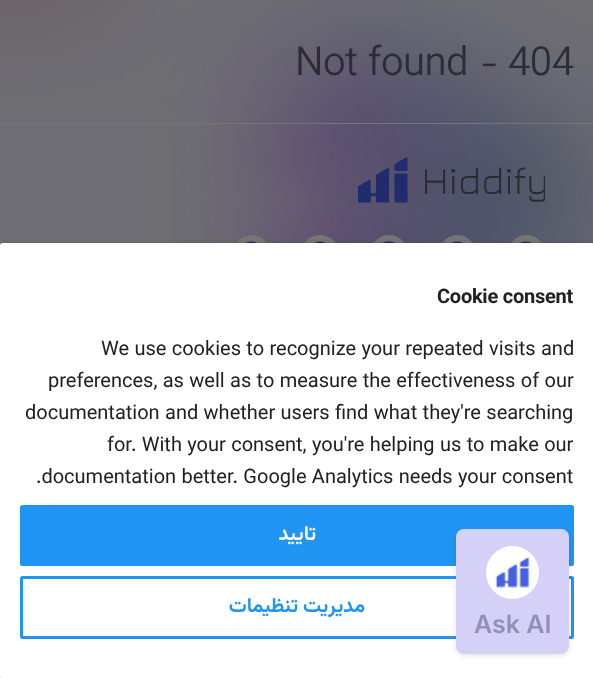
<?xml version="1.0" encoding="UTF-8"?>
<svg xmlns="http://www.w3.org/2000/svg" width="593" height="678">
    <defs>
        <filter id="blur1" x="-50%" y="-200%" width="200%" height="500%"><feGaussianBlur stdDeviation="5"/></filter>
        <filter id="blur2" x="-50%" y="-200%" width="200%" height="500%"><feGaussianBlur stdDeviation="2.5"/></filter>
    </defs>
    <rect width="100%" height="100%" fill="#FFFFFF"/>
    <image x="0" y="0" width="593" height="678" href="img_01.png"/>
    <text x="295" y="75" font-family="Vazirmatn" font-size="40" font-weight="300" letter-spacing="-0.5" fill="#2D2C34">Not found</text>
    <text x="480" y="75" font-family="Vazirmatn" font-size="40" font-weight="300" letter-spacing="-0.5" fill="#2D2C34">-</text>
    <text x="508" y="75" font-family="Vazirmatn" font-size="40" font-weight="300" letter-spacing="-0.5" fill="#2D2C34">404</text>
    <rect x="0" y="123" width="593" height="1" fill="#757575"/>
    <image x="358" y="157" width="187" height="46" href="img_02.png"/>
    <rect x="233" y="235" width="37" height="38" rx="18.5" fill="#757575"/>
    <image x="245" y="241" width="12" height="2" href="img_03.png"/>
    <circle cx="320" cy="254" r="19" fill="#757575"/>
    <image x="314" y="241" width="12" height="2" href="img_04.png"/>
    <circle cx="389" cy="254" r="19" fill="#757575"/>
    <image x="382" y="241" width="13" height="2" href="img_05.png"/>
    <rect x="439" y="235" width="37" height="38" rx="18.5" fill="#757575"/>
    <image x="451" y="241" width="13" height="2" href="img_06.png"/>
    <rect x="508" y="235" width="37" height="38" rx="18.5" fill="#757575"/>
    <image x="520" y="241" width="12" height="2" href="img_04.png"/>
    <rect x="0" y="248" width="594" height="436" rx="2.5" fill="#000000" fill-opacity="0.2" filter="url(#blur1)"/>
    <rect x="0" y="243" width="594" height="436" rx="2.5" fill="#000000" fill-opacity="0.1" filter="url(#blur2)"/>
    <rect x="0" y="243" width="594" height="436" rx="2.5" fill="#FFFFFF"/>
    <text x="437" y="303" font-family="Vazirmatn" font-size="20" font-weight="700" letter-spacing="-0.25" fill="#212121">Cookie consent</text>
    <text x="101" y="355" font-family="Vazirmatn" font-size="20" fill="#212121">We use cookies to recognize your repeated visits and</text>
    <text x="48" y="387" font-family="Vazirmatn" font-size="20" fill="#212121">preferences, as well as to measure the effectiveness of our</text>
    <text x="25" y="419" font-family="Vazirmatn" font-size="20" fill="#212121">documentation and whether users find what they're searching</text>
    <text x="107" y="451" font-family="Vazirmatn" font-size="20" fill="#212121">for. With your consent, you're helping us to make our</text>
    <text x="36" y="483" font-family="Vazirmatn" font-size="20" fill="#212121">.documentation better. Google Analytics needs your consent</text>
    <rect x="21.5" y="506.5" width="551" height="58" rx="1" fill="#2094F3" stroke="#2094F3" stroke-width="3"/>
    <text x="316" y="540" font-family="Vazirmatn" font-size="20" font-weight="700" direction="rtl" fill="#FFFFFF">تایید</text>
    <rect x="21.5" y="577.5" width="551" height="60" rx="1" fill="none" stroke="#2094F3" stroke-width="3"/>
    <text x="365" y="612" font-family="Vazirmatn" font-size="20" font-weight="700" direction="rtl" fill="#2094F3">مدیریت تنظیمات</text>
    <rect x="456" y="531" width="113" height="125" rx="8" fill="#000000" fill-opacity="0.1" filter="url(#blur2)"/>
    <rect x="456" y="529" width="113" height="125" rx="8" fill="#D5D0F8"/>
    <circle cx="512.5" cy="572.5" r="26.5" fill="#FFFFFF"/>
    <image x="495" y="557" width="35" height="31" href="img_07.png"/>
    <text x="474" y="633" font-family="Inter" font-size="25" font-weight="600" fill="#958FB5">Ask AI</text>
</svg>
